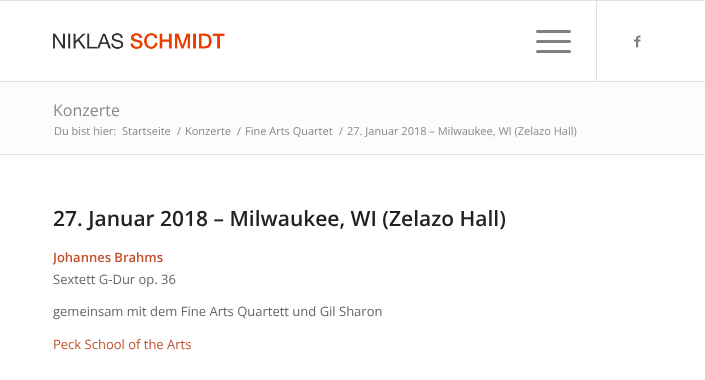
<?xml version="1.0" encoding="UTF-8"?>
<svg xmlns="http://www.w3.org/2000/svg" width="705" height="380">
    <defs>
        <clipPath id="clip1"><rect x="53" y="205" width="599" height="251"/></clipPath>
    </defs>
    <rect width="100%" height="100%" fill="#FFFFFF"/>
    <rect x="0" y="0" width="705" height="1" fill="#E1E1E1"/>
    <rect x="0" y="81" width="705" height="1" fill="#E1E1E1"/>
    <image x="53" y="33" width="172" height="16" href="img_01.png"/>
    <rect x="596" y="1" width="1" height="80" fill="#E1E1E1"/>
    <rect x="536" y="40" width="35" height="3" rx="1.5" fill="#808080"/>
    <rect x="536" y="30" width="35" height="3" rx="1.5" fill="#808080"/>
    <rect x="536" y="50" width="35" height="3" rx="1.5" fill="#808080"/>
    <image x="634" y="35" width="7" height="13" href="img_02.png"/>
    <rect x="0" y="82" width="705" height="72" fill="#FCFCFC"/>
    <text x="53" y="116" font-family="Open Sans" font-size="16" fill="#888888">Konzerte</text>
    <text x="54" y="135" font-family="Open Sans" font-size="11" fill="#888888">Du bist hier:</text>
    <text x="122" y="135" font-family="Open Sans" font-size="11" fill="#888888">Startseite</text>
    <text x="177" y="135" font-family="Open Sans" font-size="11" fill="#888888">/</text>
    <text x="185" y="135" font-family="Open Sans" font-size="11" fill="#888888">Konzerte</text>
    <text x="237" y="135" font-family="Open Sans" font-size="11" fill="#888888">/</text>
    <text x="245" y="135" font-family="Open Sans" font-size="11" fill="#888888">Fine Arts Quartet</text>
    <text x="339" y="135" font-family="Open Sans" font-size="11" fill="#888888">/</text>
    <text x="347" y="135" font-family="Open Sans" font-size="11" fill="#888888">27. Januar 2018 – Milwaukee, WI (Zelazo Hall)</text>
    <rect x="0" y="154" width="705" height="1" fill="#E1E1E1"/>
    <text x="53" y="226" font-family="Open Sans" font-size="21" font-weight="600" fill="#222222">27. Januar 2018 – Milwaukee, WI (Zelazo Hall)</text>
    <g clip-path="url(#clip1)">
        <text x="53" y="262" font-family="Open Sans" font-size="13" font-weight="600" fill="#C3512F">Johannes Brahms</text>
    </g>
    <text x="53" y="284" font-family="Open Sans" font-size="13" fill="#666666">Sextett G-Dur op. 36</text>
    <text x="53" y="316" font-family="Open Sans" font-size="13" fill="#666666">gemeinsam mit dem Fine Arts Quartett und Gil Sharon</text>
    <text x="53" y="349" font-family="Open Sans" font-size="13" fill="#C3512F">Peck School of the Arts</text>
</svg>
